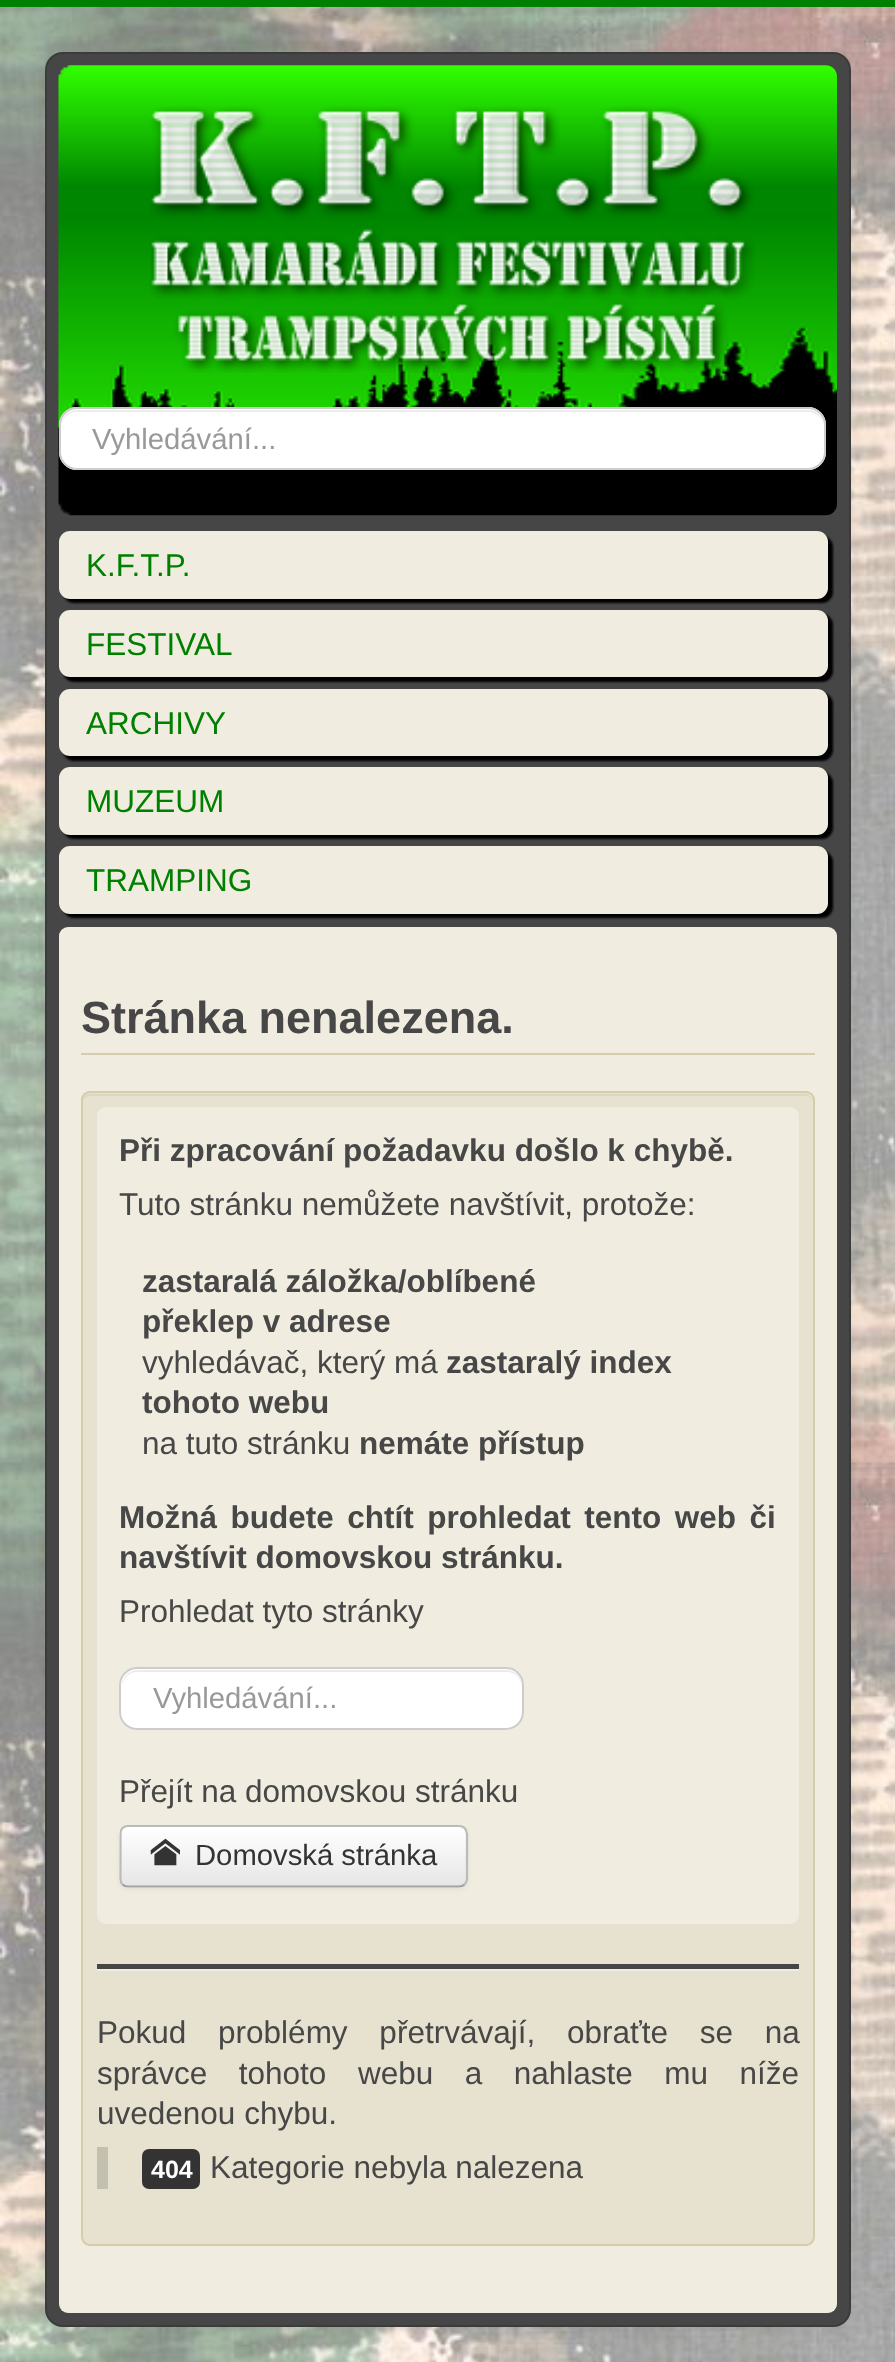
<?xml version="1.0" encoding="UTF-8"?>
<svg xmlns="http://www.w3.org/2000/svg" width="895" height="2362">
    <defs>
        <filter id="blur1" x="-50%" y="-200%" width="200%" height="500%"><feGaussianBlur stdDeviation="7"/></filter>
        <filter id="blur2" x="-50%" y="-200%" width="200%" height="500%"><feGaussianBlur stdDeviation="1"/></filter>
        <filter id="blur3" x="-50%" y="-200%" width="200%" height="500%"><feGaussianBlur stdDeviation="2"/></filter>
        <clipPath id="clip1"><rect x="119" y="1825" width="349" height="63" rx="9"/></clipPath>
        <linearGradient id="g1" gradientUnits="userSpaceOnUse" x1="294" y1="1827" x2="294" y2="1886"><stop offset="0" stop-color="#FFFFFF"/><stop offset="1" stop-color="#E6E6E6"/></linearGradient>
    </defs>
    <rect width="100%" height="100%" fill="#FFFFFF"/>
    <image x="0" y="7" width="895" height="2355" href="img_01.png"/>
    <rect x="0" y="0" width="895" height="7" fill="#008000"/>
    <rect x="45" y="52" width="806" height="2275" rx="18" fill="#000000" fill-opacity="0.05" filter="url(#blur1)"/>
    <rect x="45" y="52" width="806" height="2275" rx="18" fill="#464646"/>
    <rect x="46" y="53" width="804" height="2273" rx="17" fill="none" stroke="#000000" stroke-opacity="0.15" stroke-width="2"/>
    <image x="58" y="65" width="779" height="451" href="img_02.png"/>
    <image x="150" y="106" width="605" height="267" href="img_03.png"/>
    <rect x="59" y="407" width="767" height="63" rx="18" fill="#FFFFFF"/>
    <path d="M 76 412 H 808 C 816 412 824 419 824 428 C 824 418 818 410 808 410 H 77 C 67 410 61 418 61 428 C 61 419 68 412 76 412 Z" fill="#ECECEC"/>
    <rect x="60" y="408" width="765" height="61" rx="17" fill="none" stroke="#CCCCCC" stroke-width="2"/>
    <text x="92" y="449" font-family="Liberation Sans" font-size="29.25" fill="#999999">Vyhledávání...</text>
    <rect x="63" y="536" width="770" height="67" rx="11" fill="#000000" filter="url(#blur2)"/>
    <rect x="59" y="531" width="769" height="68" rx="11" fill="#F0EDE0"/>
    <text x="86" y="576" font-family="Liberation Sans" font-size="31.5" fill="#008000">K.F.T.P.</text>
    <rect x="63" y="614" width="770" height="68" rx="11" fill="#000000" filter="url(#blur2)"/>
    <rect x="59" y="610" width="769" height="67" rx="11" fill="#F0EDE0"/>
    <text x="86" y="655" font-family="Liberation Sans" font-size="31.5" fill="#008000">FESTIVAL</text>
    <rect x="63" y="693" width="770" height="68" rx="11" fill="#000000" filter="url(#blur2)"/>
    <rect x="59" y="689" width="769" height="67" rx="11" fill="#F0EDE0"/>
    <text x="86" y="734" font-family="Liberation Sans" font-size="31.5" fill="#008000">ARCHIVY</text>
    <rect x="63" y="772" width="770" height="67" rx="11" fill="#000000" filter="url(#blur2)"/>
    <rect x="59" y="767" width="769" height="68" rx="11" fill="#F0EDE0"/>
    <text x="86" y="812" font-family="Liberation Sans" font-size="31.5" fill="#008000">MUZEUM</text>
    <rect x="63" y="851" width="770" height="67" rx="11" fill="#000000" filter="url(#blur2)"/>
    <rect x="59" y="846" width="769" height="68" rx="11" fill="#F0EDE0"/>
    <text x="86" y="891" font-family="Liberation Sans" font-size="31.5" fill="#008000">TRAMPING</text>
    <rect x="59" y="927" width="778" height="1386" rx="9" fill="#F0EDE0"/>
    <rect x="81" y="1053" width="734" height="2" fill="#D4CCAA"/>
    <text x="81" y="1033" font-family="Liberation Sans" font-size="45" font-weight="700" fill="#474747">Stránka nenalezena.</text>
    <rect x="81" y="1091" width="734" height="1155" rx="9" fill="#E6E2CF"/>
    <path d="M 90 1096 H 806 C 809 1096 812 1099 812 1102 V 1101 C 812 1097 809 1094 805 1094 H 90 C 86 1094 83 1097 83 1101 V 1102 C 83 1099 86 1096 90 1096 Z" fill="#DBD7C5"/>
    <rect x="82" y="1092" width="732" height="1153" rx="8" fill="none" stroke="#D4CCAA" stroke-width="2"/>
    <rect x="97" y="1107" width="702" height="817" rx="9" fill="#F0EDE0"/>
    <text x="119" y="1161" font-family="Liberation Sans" font-size="31.5" font-weight="700" fill="#474747">Při zpracování požadavku došlo k chybě.</text>
    <text x="119" y="1215" font-family="Liberation Sans" font-size="31.5" fill="#474747">Tuto stránku nemůžete navštívit, protože:</text>
    <text font-family="Liberation Sans" font-size="31.5" font-weight="700" fill="#474747">
        <tspan x="142" y="1292">zastaralá záložka/oblíbené</tspan>
        <tspan x="142" y="1332">překlep v adrese</tspan>
    </text>
    <text x="142" y="1373" font-family="Liberation Sans" font-size="31.5" fill="#474747">vyhledávač, který má</text>
    <text x="446" y="1373" font-family="Liberation Sans" font-size="31.5" font-weight="700" fill="#474747">zastaralý index</text>
    <text x="142" y="1413" font-family="Liberation Sans" font-size="31.5" font-weight="700" fill="#474747">tohoto webu</text>
    <text x="142" y="1454" font-family="Liberation Sans" font-size="31.5" fill="#474747">na tuto stránku</text>
    <text x="359" y="1454" font-family="Liberation Sans" font-size="31.5" font-weight="700" fill="#474747">nemáte přístup</text>
    <text font-family="Liberation Sans" font-size="31.5" font-weight="700" fill="#474747">
        <tspan x="119" y="1528" word-spacing="4.75">Možná budete chtít prohledat tento web či</tspan>
        <tspan x="119" y="1568">navštívit domovskou stránku.</tspan>
    </text>
    <text x="119" y="1622" font-family="Liberation Sans" font-size="31.5" fill="#474747">Prohledat tyto stránky</text>
    <rect x="119" y="1667" width="405" height="63" rx="18" fill="#FFFFFF"/>
    <path d="M 137 1672 H 506 C 515 1672 522 1679 522 1688 V 1686 C 522 1677 515 1670 506 1670 H 138 C 129 1670 122 1677 122 1686 V 1688 C 122 1679 129 1672 137 1672 Z" fill="#ECECEC"/>
    <rect x="120" y="1668" width="403" height="61" rx="17" fill="none" stroke="#CCCCCC" stroke-width="2"/>
    <text x="153" y="1708" font-family="Liberation Sans" font-size="29.25" fill="#999999">Vyhledávání...</text>
    <text x="119" y="1802" font-family="Liberation Sans" font-size="31.5" fill="#474747">Přejít na domovskou stránku</text>
    <rect x="119" y="1827" width="349" height="63" rx="9" fill="#000000" fill-opacity="0.05" filter="url(#blur3)"/>
    <rect x="119" y="1825" width="349" height="63" rx="9" fill="#F5F5F5"/>
    <g clip-path="url(#clip1)">
        <rect x="119" y="1827" width="349" height="59" fill="url(#g1)"/>
    </g>
    <path d="M 464.5 1884.5 C 463 1886 461 1886.5 459 1886.5 H 128 C 126 1886.5 124 1886 122.5 1884.5" fill="none" stroke="#A2A2A2" stroke-width="2.2"/>
    <path d="M 122.5 1884.5 C 121 1883 120.5 1881 120.5 1879 V 1834 C 120.5 1831.5 121 1829.5 122.5 1828 C 124 1826.5 126 1826 128 1826 H 459 C 461 1826 463 1826.5 464.5 1828 C 466 1829.5 467 1831.5 467 1834 V 1879 C 467 1881 466 1883 464.5 1884.5" fill="none" stroke="#BBBBBB" stroke-width="2.2"/>
    <image x="150" y="1838" width="30" height="28" href="img_04.png"/>
    <text x="195" y="1865" font-family="Liberation Sans" font-size="29.25" fill="#333333">Domovská stránka</text>
    <rect x="97" y="1964" width="702" height="5" fill="#464646"/>
    <rect x="97" y="1969" width="702" height="2" fill="#F0EDE0"/>
    <text font-family="Liberation Sans" font-size="31.5" fill="#474747">
        <tspan x="97" y="2043" word-spacing="23">Pokud problémy přetrvávají, obraťte se na</tspan>
        <tspan x="97" y="2084" word-spacing="22.75">správce tohoto webu a nahlaste mu níže</tspan>
        <tspan x="97" y="2124">uvedenou chybu.</tspan>
    </text>
    <rect x="97" y="2147" width="11" height="42" fill="#C4C0B0"/>
    <rect x="142" y="2149" width="58" height="40" rx="7" fill="#333333"/>
    <text x="151" y="2178" font-family="Liberation Sans" font-size="25" font-weight="700" fill="#FFFFFF">404</text>
    <text x="210" y="2178" font-family="Liberation Sans" font-size="31.5" fill="#474747">Kategorie nebyla nalezena</text>
</svg>
